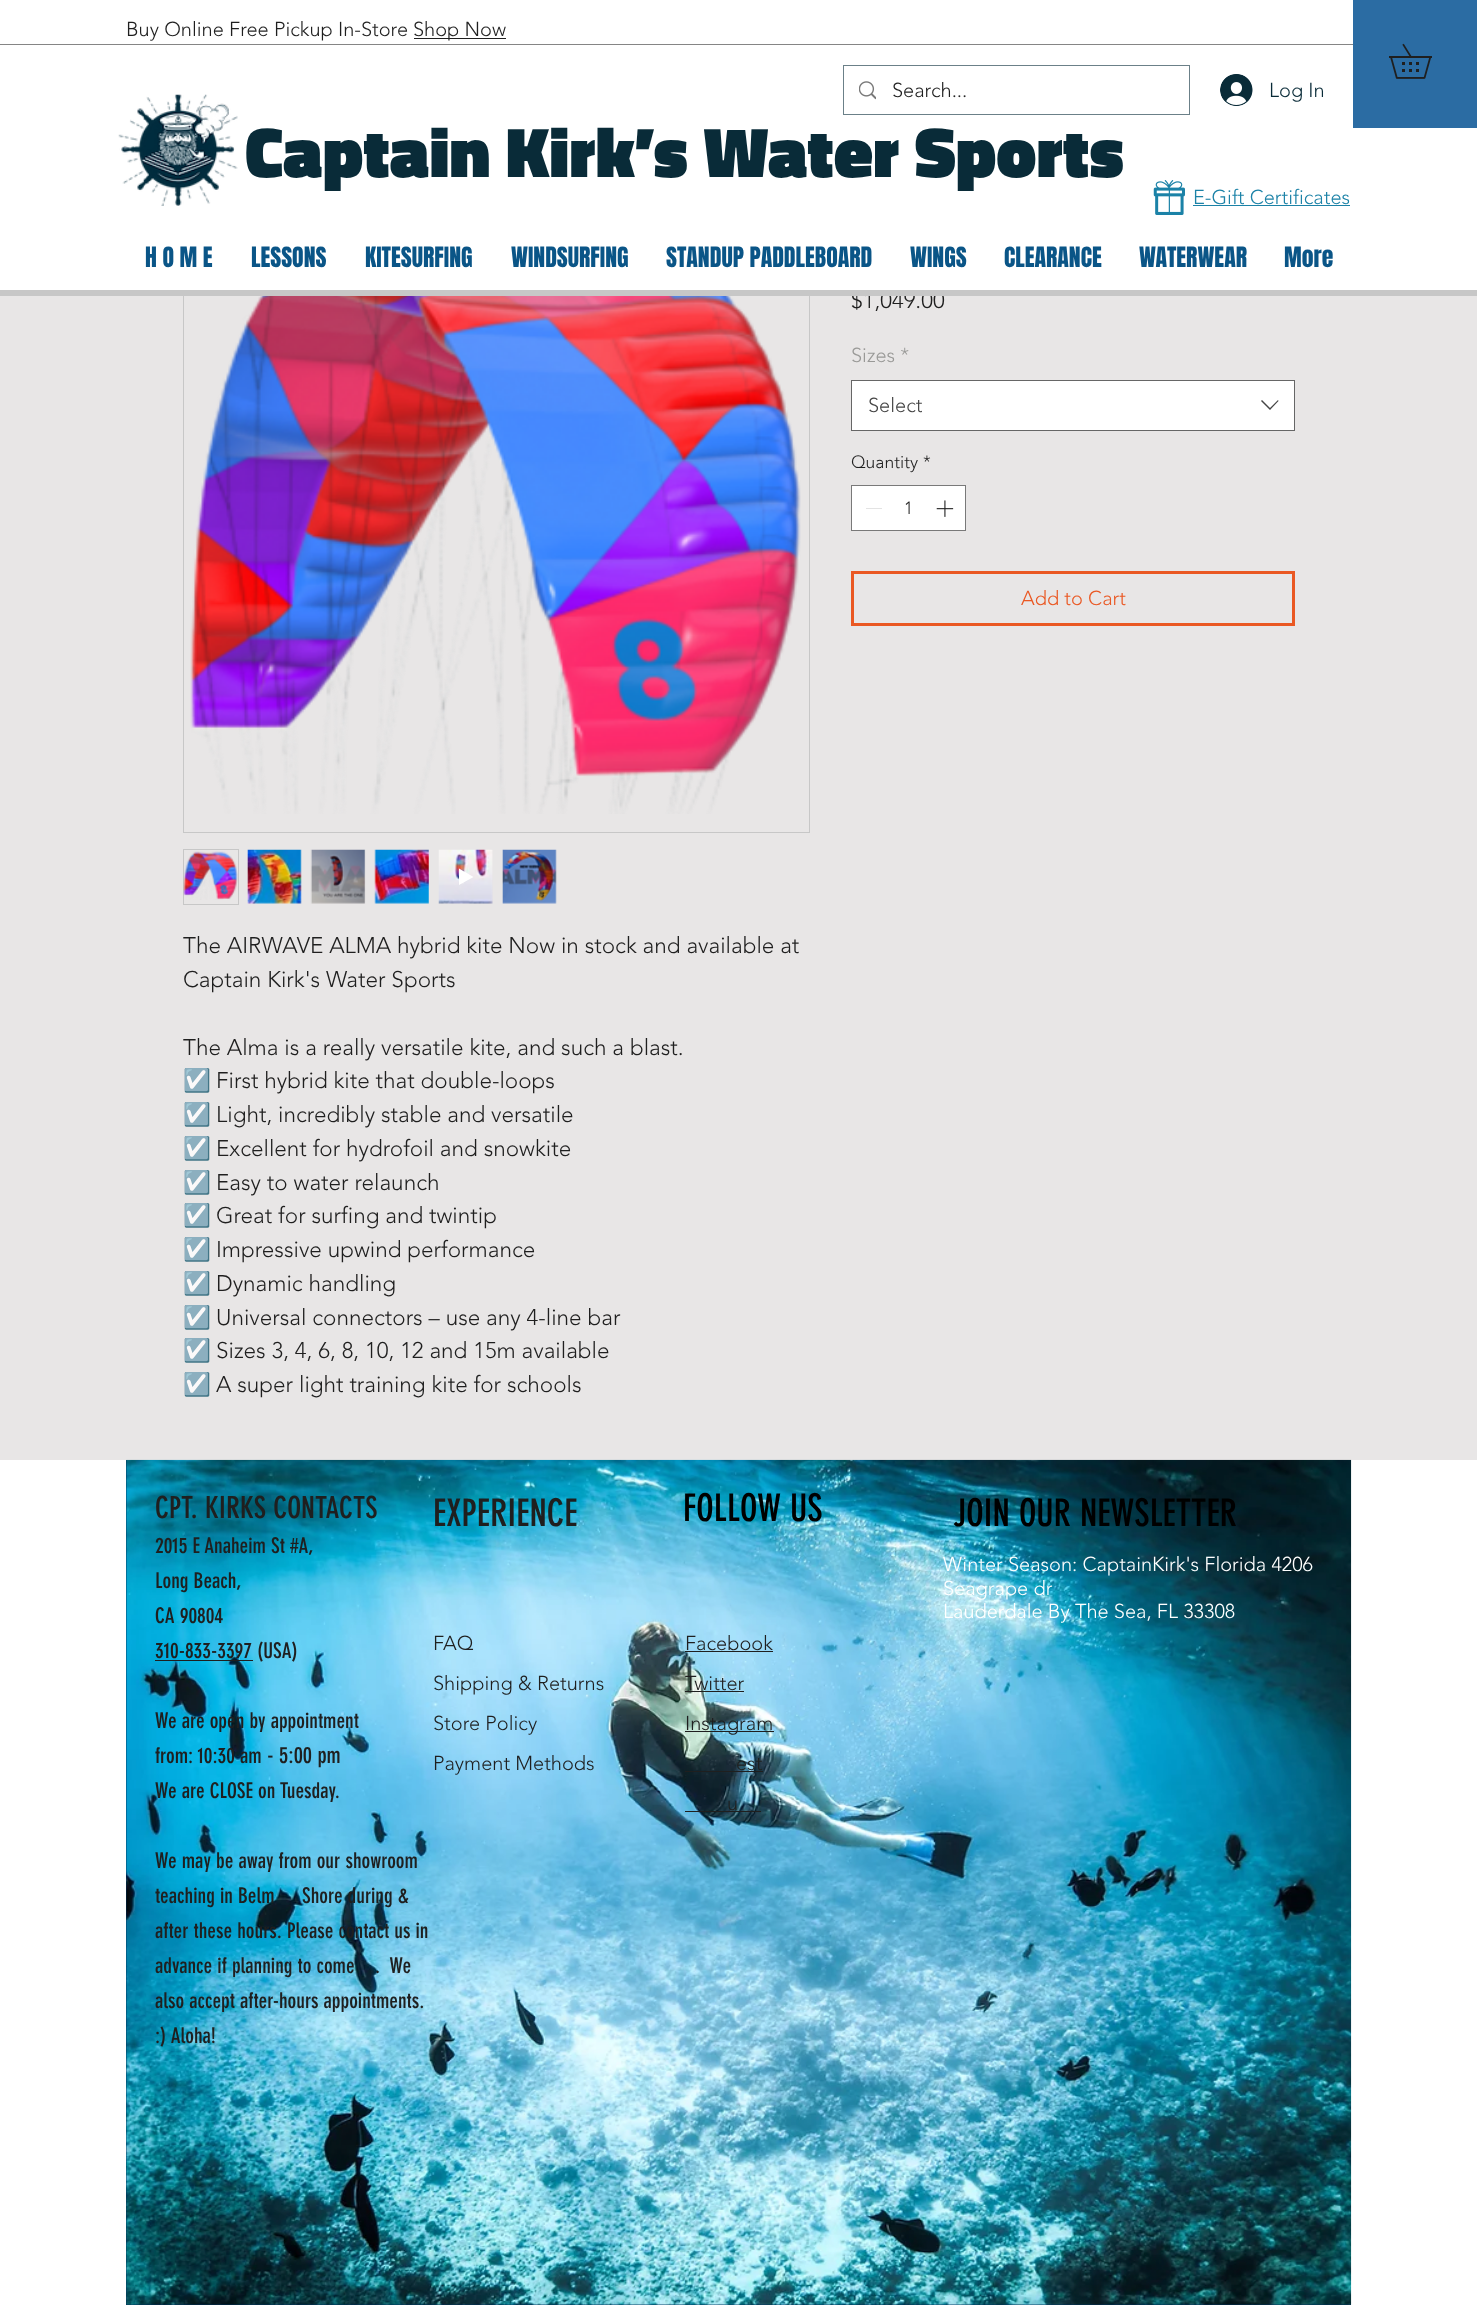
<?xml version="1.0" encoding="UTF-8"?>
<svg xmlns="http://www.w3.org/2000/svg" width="1477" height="2319">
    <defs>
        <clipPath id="clip1"><rect x="183" y="930" width="625" height="473"/></clipPath>
    </defs>
    <rect width="100%" height="100%" fill="#E8E6E6"/>
    <rect x="183.5" y="205.5" width="626" height="627" fill="none" stroke="#C7C7C7"/>
    <rect x="0" y="0" width="1477" height="290" fill="#FFFFFF"/>
    <text x="851" y="308" font-family="'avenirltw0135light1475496'" font-size="22.5" font-weight="300" fill="#1F1F1F">$1,049.00</text>
    <rect x="0" y="290" width="1477" height="6" fill="#C7C7C7"/>
    <text x="126" y="36" font-family="'avenirltw0135light1475496'" font-size="20" font-weight="300" fill="#1F1F1F">Buy Online Free Pickup In-Store</text>
    <rect x="414" y="38" width="92" height="1" fill="#1F1F1F"/>
    <text x="413" y="36" font-family="'avenirltw0135light1475496'" font-size="20" font-weight="300" fill="#1F1F1F">Shop Now</text>
    <rect x="0" y="44" width="1353" height="1" fill="#858585"/>
    <rect x="843.5" y="65.5" width="346" height="49" fill="none" stroke="#6B8088"/>
    <image x="859" y="81" width="17" height="19" href="img_01.png"/>
    <text x="892" y="97" font-family="'avenirltw0135light1475496'" font-size="20" font-weight="300" fill="#1F1F1F">Search...</text>
    <image x="1220" y="74" width="33" height="32" href="img_02.png"/>
    <text x="1269" y="97" font-family="'avenirltw0135light1475496'" font-size="20" font-weight="300" fill="#092B38">Log In</text>
    <image x="118" y="94" width="120" height="112" href="img_03.png"/>
    <text x="245" y="177" font-family="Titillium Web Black" font-size="71.25" font-weight="900" fill="#092B38">Captain Kirk’s Water Sports</text>
    <image x="1153" y="180" width="32" height="35" href="img_04.png"/>
    <text x="1193" y="204" font-family="'avenirltw0135light1475496'" font-size="20" font-weight="300" fill="#1B82A7">E-Gift Certificates</text>
    <rect x="1193" y="205" width="157" height="1" fill="#1B82A7"/>
    <text x="145" y="267" font-family="Anton" font-size="23.75" fill="#0A5587">H O M E</text>
    <text x="251" y="267" font-family="Anton" font-size="23.75" fill="#0A5587">LESSONS</text>
    <text x="365" y="267" font-family="Anton" font-size="23.75" fill="#0A5587">KITESURFING</text>
    <text x="511" y="267" font-family="Anton" font-size="23.75" fill="#0A5587">WINDSURFING</text>
    <text x="666" y="267" font-family="Anton" font-size="23.75" fill="#0A5587">STANDUP PADDLEBOARD</text>
    <text x="910" y="267" font-family="Anton" font-size="23.75" fill="#0A5587">WINGS</text>
    <text x="1004" y="267" font-family="Anton" font-size="23.75" fill="#0A5587">CLEARANCE</text>
    <text x="1139" y="267" font-family="Anton" font-size="23.75" fill="#0A5587">WATERWEAR</text>
    <text x="1284" y="267" font-family="Anton" font-size="23.75" fill="#0A5587">More</text>
    <rect x="1353" y="0" width="124" height="128" fill="#2B6CA3"/>
    <image x="1389" y="43" width="43" height="36" href="img_05.png"/>
    <text x="851" y="362" font-family="'avenirltw0135light1475496'" font-size="20" font-weight="300" fill="#999997">Sizes *</text>
    <rect x="851.5" y="380.5" width="443" height="50" fill="#FFFFFF" stroke="#666666"/>
    <text x="868" y="412" font-family="'avenirltw0135light1475496'" font-size="20" font-weight="300" fill="#444444">Select</text>
    <path d="M 1278 400 L 1278.5 401 L 1270 410 L 1261 401 L 1262 400 L 1270 408 Z" fill="#444444" fill-rule="evenodd"/>
    <text x="851" y="468" font-family="'avenirltw0135light1475496'" font-size="17.5" font-weight="300" fill="#1F1F1F">Quantity</text>
    <text x="923" y="468" font-family="'avenirltw0135light1475496'" font-size="17.5" font-weight="300" fill="#1F1F1F">*</text>
    <rect x="851.5" y="485.5" width="114" height="45" fill="#FFFFFF" stroke="#797979"/>
    <rect x="866" y="508" width="16" height="1" fill="#E3E3E3"/>
    <text x="904" y="514" font-family="'avenirltw0135light1475496'" font-size="17.5" font-weight="300" fill="#1F1F1F">1</text>
    <image x="936" y="500" width="18" height="17" href="img_06.png"/>
    <rect x="852.5" y="572.5" width="441" height="52" fill="none" stroke="#EA5823" stroke-width="3"/>
    <text x="1021" y="605" font-family="'avenirltw0135light1475496'" font-size="20" font-weight="300" fill="#EA5823">Add to Cart</text>
    <image x="190" y="296" width="611" height="518" href="img_07.png"/>
    <rect x="183.5" y="849.5" width="55" height="55" fill="none" stroke="#C7C7C7"/>
    <image x="183" y="851" width="55" height="49" href="img_08.png"/>
    <image x="247" y="849" width="55" height="55" href="img_09.png"/>
    <image x="310" y="849" width="56" height="55" href="img_10.png"/>
    <image x="374" y="849" width="55" height="55" href="img_11.png"/>
    <image x="438" y="849" width="55" height="55" href="img_12.png"/>
    <path d="M 459 868.5 V 885 L 473.5 877 Z" fill="#FFFFFF"/>
    <image x="502" y="849" width="55" height="55" href="img_13.png"/>
    <text font-family="'avenirltw0135light1475496'" font-size="22.5" font-weight="300" fill="#1F1F1F">
        <tspan x="183" y="953">The AIRWAVE ALMA hybrid kite Now in stock and available at</tspan>
        <tspan x="183" y="987">Captain Kirk's Water Sports</tspan>
    </text>
    <text x="183" y="1055" font-family="'avenirltw0135light1475496'" font-size="22.5" font-weight="300" fill="#1F1F1F">The Alma is a really versatile kite, and such a blast.</text>
    <g clip-path="url(#clip1)">
        <text x="183" y="1088" font-family="Noto Color Emoji" font-size="22.5" fill="#1F1F1F">☑️</text>
    </g>
    <text x="216" y="1088" font-family="'avenirltw0135light1475496'" font-size="22.5" font-weight="300" fill="#1F1F1F">First hybrid kite that double-loops</text>
    <g clip-path="url(#clip1)">
        <text x="183" y="1122" font-family="Noto Color Emoji" font-size="22.5" fill="#1F1F1F">☑️</text>
    </g>
    <text x="216" y="1122" font-family="'avenirltw0135light1475496'" font-size="22.5" font-weight="300" fill="#1F1F1F">Light, incredibly stable and versatile</text>
    <g clip-path="url(#clip1)">
        <text x="183" y="1156" font-family="Noto Color Emoji" font-size="22.5" fill="#1F1F1F">☑️</text>
    </g>
    <text x="216" y="1156" font-family="'avenirltw0135light1475496'" font-size="22.5" font-weight="300" fill="#1F1F1F">Excellent for hydrofoil and snowkite</text>
    <g clip-path="url(#clip1)">
        <text x="183" y="1190" font-family="Noto Color Emoji" font-size="22.5" fill="#1F1F1F">☑️</text>
    </g>
    <text x="216" y="1190" font-family="'avenirltw0135light1475496'" font-size="22.5" font-weight="300" fill="#1F1F1F">Easy to water relaunch</text>
    <g clip-path="url(#clip1)">
        <text x="183" y="1223" font-family="Noto Color Emoji" font-size="22.5" fill="#1F1F1F">☑️</text>
    </g>
    <text x="216" y="1223" font-family="'avenirltw0135light1475496'" font-size="22.5" font-weight="300" fill="#1F1F1F">Great for surfing and twintip</text>
    <g clip-path="url(#clip1)">
        <text x="183" y="1257" font-family="Noto Color Emoji" font-size="22.5" fill="#1F1F1F">☑️</text>
    </g>
    <text x="216" y="1257" font-family="'avenirltw0135light1475496'" font-size="22.5" font-weight="300" fill="#1F1F1F">Impressive upwind performance</text>
    <g clip-path="url(#clip1)">
        <text x="183" y="1291" font-family="Noto Color Emoji" font-size="22.5" fill="#1F1F1F">☑️</text>
    </g>
    <text x="216" y="1291" font-family="'avenirltw0135light1475496'" font-size="22.5" font-weight="300" fill="#1F1F1F">Dynamic handling</text>
    <g clip-path="url(#clip1)">
        <text x="183" y="1325" font-family="Noto Color Emoji" font-size="22.5" fill="#1F1F1F">☑️</text>
    </g>
    <text x="216" y="1325" font-family="'avenirltw0135light1475496'" font-size="22.5" font-weight="300" fill="#1F1F1F">Universal connectors – use any 4-line bar</text>
    <g clip-path="url(#clip1)">
        <text x="183" y="1358" font-family="Noto Color Emoji" font-size="22.5" fill="#1F1F1F">☑️</text>
    </g>
    <text x="216" y="1358" font-family="'avenirltw0135light1475496'" font-size="22.5" font-weight="300" fill="#1F1F1F">Sizes 3, 4, 6, 8, 10, 12 and 15m available</text>
    <g clip-path="url(#clip1)">
        <text x="183" y="1392" font-family="Noto Color Emoji" font-size="22.5" fill="#1F1F1F">☑️</text>
    </g>
    <text x="216" y="1392" font-family="'avenirltw0135light1475496'" font-size="22.5" font-weight="300" fill="#1F1F1F">A super light training kite for schools</text>
    <rect x="0" y="1460" width="1477" height="859" fill="#FFFFFF"/>
    <rect x="126" y="1460" width="1225" height="845" fill="#00305B"/>
    <image x="126" y="1459" width="1226" height="846" href="img_14.png"/>
    <text x="155" y="1518" font-family="'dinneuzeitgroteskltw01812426'" font-size="30" fill="#1F1F1F">CPT. KIRKS CONTACTS</text>
    <text font-family="'dinneuzeitgroteskltw01812426'" font-size="21.25" fill="#1F1F1F">
        <tspan x="155" y="1553">2015 E Anaheim St #A,</tspan>
        <tspan x="155" y="1588">Long Beach,</tspan>
        <tspan x="155" y="1623">CA 90804</tspan>
    </text>
    <rect x="155" y="1660" width="98" height="1" fill="#1F1F1F"/>
    <text x="155" y="1658" font-family="'dinneuzeitgroteskltw01812426'" font-size="21.25" fill="#1F1F1F">310-833-3397 (USA)</text>
    <text font-family="'dinneuzeitgroteskltw01812426'" font-size="21.25" fill="#1F1F1F">
        <tspan x="155" y="1728">We are open by appointment</tspan>
        <tspan x="155" y="1763">from: 10:30 am</tspan>
    </text>
    <text x="267" y="1763" font-family="'dinneuzeitgroteskltw01812426'" font-size="22.5" fill="#1F1F1F">- 5:00 pm</text>
    <text x="155" y="1798" font-family="'dinneuzeitgroteskltw01812426'" font-size="21.25" fill="#1F1F1F">We are CLOSE on Tuesday.</text>
    <text font-family="'dinneuzeitgroteskltw01812426'" font-size="21.25" fill="#1F1F1F">
        <tspan x="155" y="1868">We may be away from our showroom</tspan>
        <tspan x="155" y="1903">teaching in Belm</tspan>
    </text>
    <text x="302" y="1903" font-family="'dinneuzeitgroteskltw01812426'" font-size="21.25" fill="#1F1F1F">Shore during &amp;</text>
    <text font-family="'dinneuzeitgroteskltw01812426'" font-size="21.25" fill="#1F1F1F">
        <tspan x="155" y="1938">after these hours. Please contact us in</tspan>
        <tspan x="155" y="1973">advance if planning to come</tspan>
    </text>
    <text x="375" y="1973" font-family="'dinneuzeitgroteskltw01812426'" font-size="21.25" fill="#1F1F1F" xml:space="preserve">.  We</text>
    <text font-family="'dinneuzeitgroteskltw01812426'" font-size="21.25" fill="#1F1F1F">
        <tspan x="155" y="2008">also accept after-hours appointments.</tspan>
        <tspan x="155" y="2043">:) Aloha!</tspan>
    </text>
    <text x="433" y="1526" font-family="'dinneuzeitgroteskltw01812426'" font-size="37.5" fill="#1F1F1F">EXPERIENCE</text>
    <text x="683" y="1521" font-family="'dinneuzeitgroteskltw01812426'" font-size="37.5" fill="#000000">FOLLOW US</text>
    <text x="953" y="1526" font-family="'dinneuzeitgroteskltw01812426'" font-size="37.5" fill="#000000">JOIN OUR NEWSLETTER</text>
    <text x="433" y="1650" font-family="'avenirltw0135light1475496'" font-size="20" font-weight="300" fill="#1F1F1F">FAQ</text>
    <text x="433" y="1690" font-family="'avenirltw0135light1475496'" font-size="20" font-weight="300" fill="#1F1F1F">Shipping &amp; Returns</text>
    <text x="433" y="1730" font-family="'avenirltw0135light1475496'" font-size="20" font-weight="300" fill="#1F1F1F">Store Policy</text>
    <text x="433" y="1770" font-family="'avenirltw0135light1475496'" font-size="20" font-weight="300" fill="#1F1F1F">Payment Methods</text>
    <text x="685" y="1650" font-family="'avenirltw0135light1475496'" font-size="20" font-weight="300" fill="#1F1F1F">Facebook</text>
    <rect x="685" y="1651" width="88" height="1" fill="#1F1F1F"/>
    <text x="685" y="1690" font-family="'avenirltw0135light1475496'" font-size="20" font-weight="300" fill="#1F1F1F">Twitter</text>
    <rect x="685" y="1691" width="59" height="1" fill="#1F1F1F"/>
    <rect x="685" y="1731" width="89" height="1" fill="#1F1F1F"/>
    <text x="685" y="1730" font-family="'avenirltw0135light1475496'" font-size="20" font-weight="300" fill="#1F1F1F">Instagram</text>
    <text x="736" y="1770" font-family="'avenirltw0135light1475496'" font-size="20" font-weight="300" fill="#1F1F1F">est</text>
    <rect x="685" y="1771" width="78" height="1" fill="#1F1F1F"/>
    <text x="727" y="1810" font-family="'avenirltw0135light1475496'" font-size="20" font-weight="300" fill="#1F1F1F">u</text>
    <rect x="685" y="1811" width="76" height="1" fill="#1F1F1F"/>
    <text font-family="'avenirltw0135light1475496'" font-size="20" font-weight="300" fill="#FFFFFF">
        <tspan x="943" y="1571">Winter Season: CaptainKirk's Florida 4206</tspan>
        <tspan x="943" y="1595">Seagrape dr</tspan>
        <tspan x="943" y="1618">Lauderdale By The Sea, FL 33308</tspan>
    </text>
</svg>
